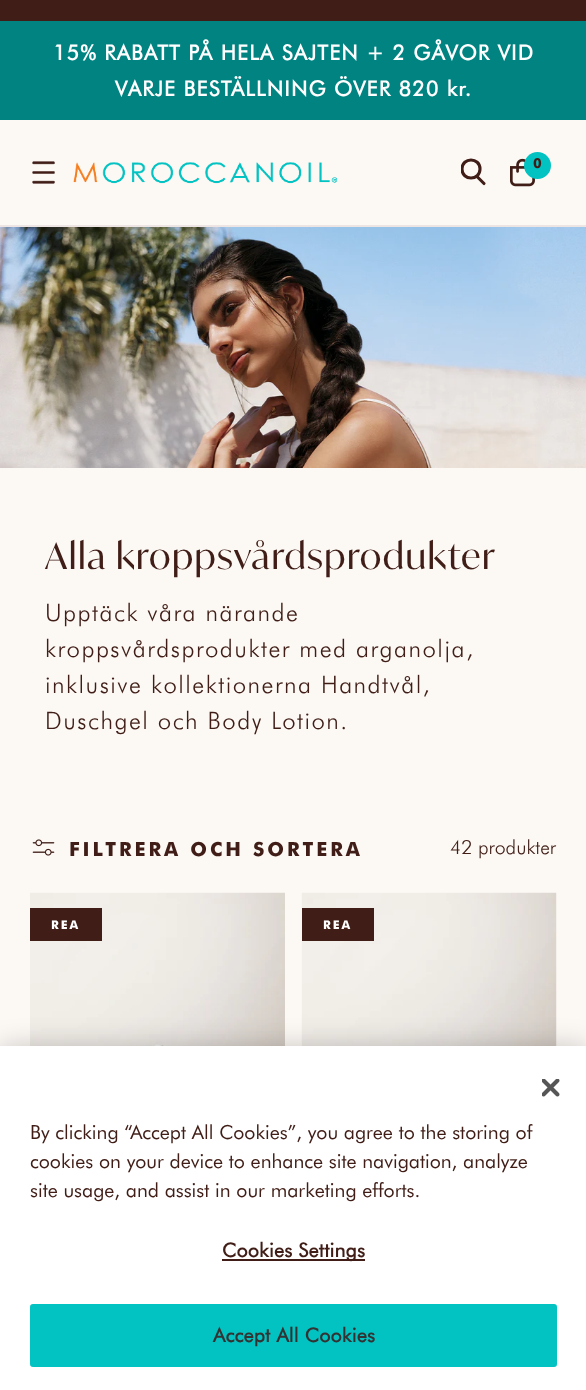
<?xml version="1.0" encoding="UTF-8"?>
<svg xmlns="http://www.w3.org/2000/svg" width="586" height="1390">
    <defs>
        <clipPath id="clip1"><rect x="461" y="149" width="25" height="48"/></clipPath>
        <filter id="blur1" x="-50%" y="-200%" width="200%" height="500%"><feGaussianBlur stdDeviation="13.5"/></filter>
    </defs>
    <rect width="100%" height="100%" fill="#FCF8F4"/>
    <rect x="0" y="0" width="586" height="21" fill="#401E17"/>
    <rect x="0" y="21" width="586" height="99" fill="#018382"/>
    <text x="53" y="60" font-family="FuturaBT" font-size="21" font-weight="700" letter-spacing="1.2" fill="#FFFFFF">15% RABATT PÅ HELA SAJTEN + 2 GÅVOR VID</text>
    <text x="115" y="96" font-family="FuturaBT" font-size="21" font-weight="700" letter-spacing="1.2" fill="#FFFFFF">VARJE BESTÄLLNING ÖVER 820 kr.</text>
    <rect x="0" y="225" width="586" height="2" fill="#ECE5E3"/>
    <image x="32" y="161" width="23" height="23" href="img_01.png"/>
    <image x="73" y="162" width="265" height="22" href="img_02.png"/>
    <path d="M 477.5 177 L 484 183.5" fill="none" stroke="#401E17" stroke-width="3.1" stroke-linecap="round"/>
    <g clip-path="url(#clip1)">
        <path d="M 480 169 C 480 181 462 181 462 169 C 462 157 480 157 480 169 Z" fill="none" stroke="#401E17" stroke-width="3.1" stroke-linecap="round"/>
    </g>
    <image x="510" y="158" width="25" height="29" href="img_03.png"/>
    <circle cx="537.5" cy="165.5" r="13.5" fill="#02C3C2"/>
    <text x="533" y="168" font-family="FuturaBT" font-size="14" font-weight="900" letter-spacing="-1" fill="#401E17">0</text>
    <image x="0" y="227" width="586" height="241" href="img_04.png"/>
    <text x="45" y="569" font-family="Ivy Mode" font-size="36" letter-spacing="1.5" fill="#401E17">Alla kroppsvårdsprodukter</text>
    <text font-family="FuturaBT" font-size="24" font-weight="300" letter-spacing="1.5" fill="#401E17">
        <tspan x="45" y="621">Upptäck våra närande</tspan>
        <tspan x="45" y="657">kroppsvårdsprodukter med arganolja,</tspan>
        <tspan x="45" y="693">inklusive kollektionerna Handtvål,</tspan>
        <tspan x="45" y="729">Duschgel och Body Lotion.</tspan>
    </text>
    <image x="32" y="839" width="23" height="17" href="img_05.png"/>
    <text x="69" y="856" font-family="FuturaBT" font-size="19.5" font-weight="900" letter-spacing="3" fill="#401E17">FILTRERA OCH SORTERA</text>
    <text x="450" y="854" font-family="FuturaBT" font-size="19.5" font-weight="300" fill="#401E17">42 produkter</text>
    <image x="30" y="892" width="255" height="154" href="img_06.png"/>
    <rect x="30" y="908" width="72" height="33" fill="#401E17"/>
    <text x="51" y="929" font-family="FuturaBT" font-size="12" font-weight="900" letter-spacing="2" fill="#FFFFFF">REA</text>
    <image x="301" y="892" width="256" height="154" href="img_07.png"/>
    <rect x="302" y="908" width="72" height="33" fill="#401E17"/>
    <text x="323" y="929" font-family="FuturaBT" font-size="12" font-weight="900" letter-spacing="2" fill="#FFFFFF">REA</text>
    <rect x="0" y="1046" width="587" height="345" fill="#000000" fill-opacity="0.2" filter="url(#blur1)"/>
    <rect x="0" y="1046" width="586" height="344" fill="#FFFFFF"/>
    <image x="542" y="1079" width="18" height="18" href="img_08.png"/>
    <text font-family="FuturaBT" font-size="19.5" fill="#401E17">
        <tspan x="30" y="1139">By clicking “Accept All Cookies”, you agree to the storing of</tspan>
        <tspan x="30" y="1168">cookies on your device to enhance site navigation, analyze</tspan>
        <tspan x="30" y="1197">site usage, and assist in our marketing efforts.</tspan>
    </text>
    <rect x="222" y="1259" width="143" height="2" fill="#401E17"/>
    <text x="222" y="1257" font-family="FuturaBT" font-size="19.5" font-weight="700" letter-spacing="0.25" fill="#401E17">Cookies Settings</text>
    <rect x="31" y="1305" width="525" height="61" rx="2" fill="#02C3C2" stroke="#02C3C2" stroke-width="2"/>
    <text x="213" y="1342" font-family="FuturaBT" font-size="19.5" font-weight="700" letter-spacing="0.25" fill="#333333">Accept All Cookies</text>
</svg>
